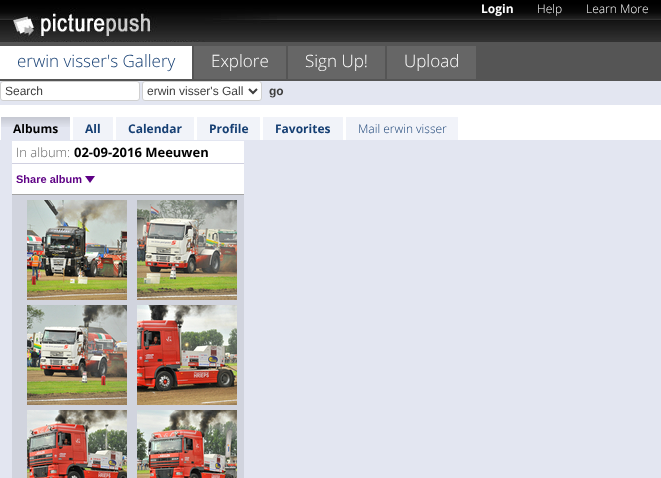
<?xml version="1.0" encoding="UTF-8"?>
<svg xmlns="http://www.w3.org/2000/svg" width="661" height="478">
    <rect width="100%" height="100%" fill="#E3E6F1"/>
    <image x="0" y="0" width="661" height="42" href="img_01.png"/>
    <image x="13" y="8" width="264" height="34" href="img_02.png"/>
    <text x="481" y="13" font-family="Open Sans" font-size="12" font-weight="700" fill="#FFFFFF">Login</text>
    <text x="537" y="13" font-family="Open Sans" font-size="12" font-weight="300" fill="#FFFFFF">Help</text>
    <text x="586" y="13" font-family="Open Sans" font-size="12" font-weight="300" fill="#FFFFFF">Learn More</text>
    <rect x="0" y="42" width="661" height="39" fill="#555555"/>
    <rect x="0" y="46" width="192" height="33" fill="#FFFFFF"/>
    <text x="17" y="67" font-family="Open Sans" font-size="17" font-weight="300" fill="#163F73">erwin visser's Gallery</text>
    <rect x="194" y="46" width="92" height="33" fill="#666666"/>
    <text x="211" y="67" font-family="Open Sans" font-size="17" font-weight="300" fill="#FFFFFF">Explore</text>
    <rect x="288" y="46" width="97" height="33" fill="#666666"/>
    <text x="305" y="67" font-family="Open Sans" font-size="17" font-weight="300" fill="#FFFFFF">Sign Up!</text>
    <rect x="387" y="46" width="89" height="33" fill="#666666"/>
    <text x="404" y="67" font-family="Open Sans" font-size="17" font-weight="300" fill="#FFFFFF">Upload</text>
    <rect x="0.5" y="81.5" width="139" height="19" rx="2.5" fill="#FFFFFF" stroke="#D0D0D0"/>
    <text x="5" y="95" font-family="Liberation Sans" font-size="12" fill="#3E3E3E">Search</text>
    <rect x="142.5" y="81.5" width="119" height="19" rx="2.5" fill="#FFFFFF" stroke="#D0D0D0"/>
    <path d="M 249 89 L 253 93 L 257 89" fill="none" stroke="#3E3E3E" stroke-width="2"/>
    <text x="147" y="95" font-family="Liberation Sans" font-size="12" fill="#3E3E3E">erwin visser's Gall</text>
    <text x="269" y="95" font-family="Liberation Sans" font-size="12" font-weight="700" fill="#3E3E3E">go</text>
    <rect x="0" y="105" width="661" height="35" fill="#FFFFFF"/>
    <rect x="1" y="117" width="69" height="23" fill="#E3E6F1"/>
    <image x="1" y="117" width="69" height="10" href="img_03.png"/>
    <text x="13" y="133" font-family="Open Sans" font-size="12" font-weight="700" fill="#000000">Albums</text>
    <rect x="73" y="117" width="40" height="23" fill="#F1F3F9"/>
    <text x="85" y="133" font-family="Open Sans" font-size="12" font-weight="700" fill="#163F73">All</text>
    <rect x="116" y="117" width="78" height="23" fill="#F1F3F9"/>
    <text x="128" y="133" font-family="Open Sans" font-size="12" font-weight="700" fill="#163F73">Calendar</text>
    <rect x="197" y="117" width="63" height="23" fill="#F1F3F9"/>
    <text x="209" y="133" font-family="Open Sans" font-size="12" font-weight="700" fill="#163F73">Profile</text>
    <rect x="263" y="117" width="80" height="23" fill="#F1F3F9"/>
    <text x="275" y="133" font-family="Open Sans" font-size="12" font-weight="700" fill="#163F73">Favorites</text>
    <rect x="346" y="117" width="112" height="23" fill="#F1F3F9"/>
    <text x="358" y="133" font-family="Open Sans" font-size="12" font-weight="300" fill="#163F73">Mail erwin visser</text>
    <rect x="12" y="141" width="232" height="53" fill="#FFFFFF"/>
    <rect x="12" y="194" width="232" height="1" fill="#A4A4A4"/>
    <text x="16" y="157" font-family="Open Sans" font-size="13" font-weight="300" fill="#666666">In album:</text>
    <text x="74" y="157" font-family="Open Sans" font-size="13" font-weight="700" fill="#000000">02-09-2016 Meeuwen</text>
    <rect x="12" y="163" width="232" height="1" fill="#D0D0E0"/>
    <text x="16" y="183" font-family="Liberation Sans" font-size="11" font-weight="700" fill="#5E0085">Share album</text>
    <path d="M 85 176 H 95 L 90 183 Z" fill="#5E0085"/>
    <rect x="12" y="195" width="232" height="283" fill="#D1D4DE"/>
    <image x="27" y="200" width="100" height="100" href="img_04.png"/>
    <image x="137" y="200" width="100" height="100" href="img_05.png"/>
    <image x="27" y="305" width="100" height="100" href="img_06.png"/>
    <image x="137" y="305" width="100" height="100" href="img_07.png"/>
    <image x="27" y="410" width="100" height="68" href="img_08.png"/>
    <image x="137" y="410" width="100" height="68" href="img_09.png"/>
</svg>
